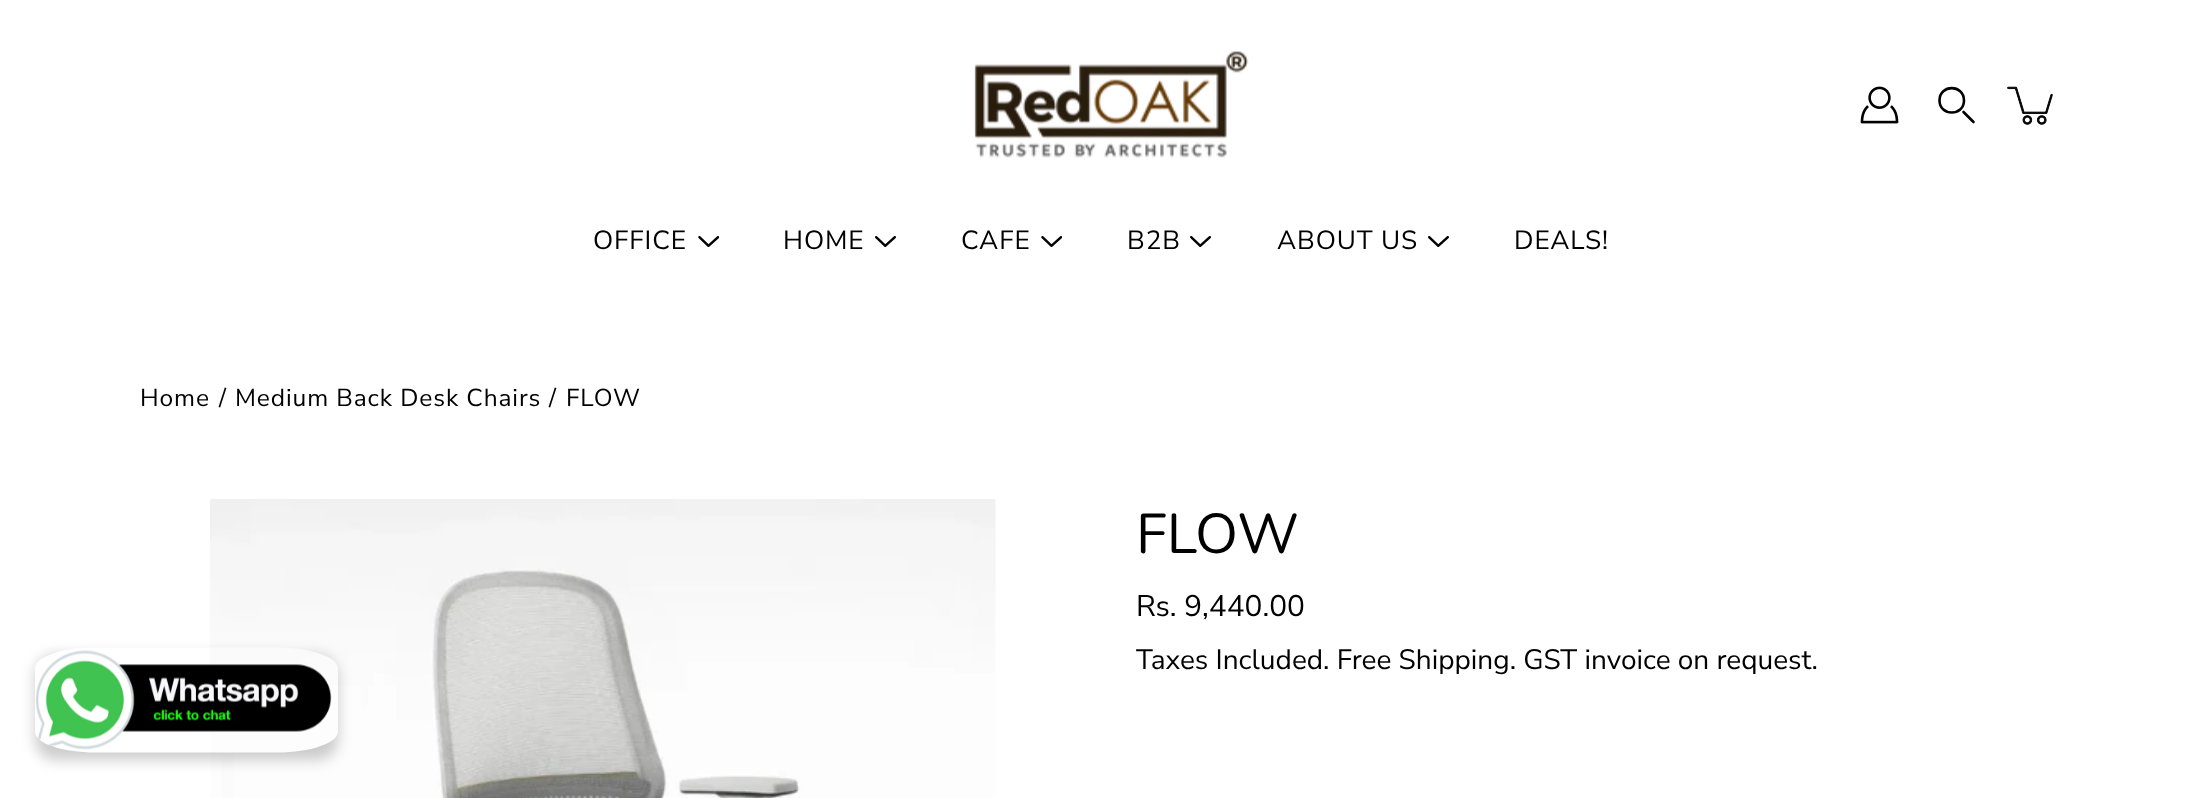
<?xml version="1.0" encoding="UTF-8"?>
<svg xmlns="http://www.w3.org/2000/svg" width="2201" height="798">
    <defs>
        <clipPath id="clip1"><path d="M 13 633 H 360 V 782 H 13 Z M 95.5 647.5 H 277 C 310.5 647.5 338 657 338 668.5 V 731.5 C 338 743 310.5 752.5 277 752.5 H 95.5 C 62 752.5 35 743 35 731.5 V 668.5 C 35 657 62 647.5 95.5 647.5 Z" clip-rule="evenodd"/></clipPath>
        <filter id="blur1" x="-50%" y="-200%" width="200%" height="500%"><feGaussianBlur stdDeviation="7"/></filter>
    </defs>
    <rect width="100%" height="100%" fill="#FFFFFF"/>
    <image x="974" y="51" width="275" height="107" href="img_01.png"/>
    <image x="1860" y="86" width="39" height="38" href="img_02.png"/>
    <path d="M 1964 100.5 C 1964 116.5 1939.5 116.5 1939.5 100.5 C 1939.5 84 1964 84 1964 100.5 Z" fill="none" stroke="#000000" stroke-width="2.6"/>
    <path d="M 1963.5 112 L 1973.5 122" fill="none" stroke="#000000" stroke-width="2.6" stroke-linecap="round"/>
    <image x="2007" y="86" width="46" height="39" href="img_03.png"/>
    <text x="593" y="249" font-family="Nunito Sans" font-size="26.25" letter-spacing="0.9" fill="#000000">OFFICE</text>
    <image x="698" y="236" width="21" height="11" href="img_04.png"/>
    <text x="783" y="249" font-family="Nunito Sans" font-size="26.25" letter-spacing="0.9" fill="#000000">HOME</text>
    <image x="875" y="236" width="21" height="11" href="img_05.png"/>
    <text x="961" y="249" font-family="Nunito Sans" font-size="26.25" letter-spacing="0.9" fill="#000000">CAFE</text>
    <image x="1041" y="236" width="21" height="11" href="img_04.png"/>
    <text x="1127" y="249" font-family="Nunito Sans" font-size="26.25" letter-spacing="0.9" fill="#000000">B2B</text>
    <image x="1190" y="236" width="21" height="11" href="img_05.png"/>
    <text x="1277" y="249" font-family="Nunito Sans" font-size="26.25" letter-spacing="0.9" fill="#000000">ABOUT US</text>
    <image x="1428" y="236" width="21" height="11" href="img_05.png"/>
    <text x="1514" y="249" font-family="Nunito Sans" font-size="26.25" letter-spacing="0.9" fill="#000000">DEALS!</text>
    <text x="140" y="406" font-family="Nunito Sans" font-size="24.5" letter-spacing="0.9" fill="#000000">Home</text>
    <text x="219" y="406" font-family="Nunito Sans" font-size="24.5" letter-spacing="0.9" fill="#000000">/</text>
    <text x="235" y="406" font-family="Nunito Sans" font-size="24.5" letter-spacing="0.9" fill="#000000">Medium Back Desk Chairs</text>
    <text x="549" y="406" font-family="Nunito Sans" font-size="24.5" letter-spacing="0.9" fill="#000000">/</text>
    <text x="566" y="406" font-family="Nunito Sans" font-size="24.5" letter-spacing="0.9" fill="#000000">FLOW</text>
    <image x="210" y="499" width="786" height="299" href="img_06.png"/>
    <text x="1136" y="553" font-family="Nunito" font-size="56" fill="#000000">FLOW</text>
    <text x="1136" y="616" font-family="Nunito Sans" font-size="29.75" fill="#000000">Rs. 9,440.00</text>
    <text x="1136" y="669" font-family="Nunito Sans" font-size="28" fill="#000000">Taxes Included. Free Shipping. GST invoice on request.</text>
    <g clip-path="url(#clip1)">
        <rect x="35" y="655" width="303" height="105" rx="21" fill="#000000" fill-opacity="0.2" filter="url(#blur1)"/>
    </g>
    <image x="35" y="650" width="297" height="100" href="img_07.png"/>
</svg>
